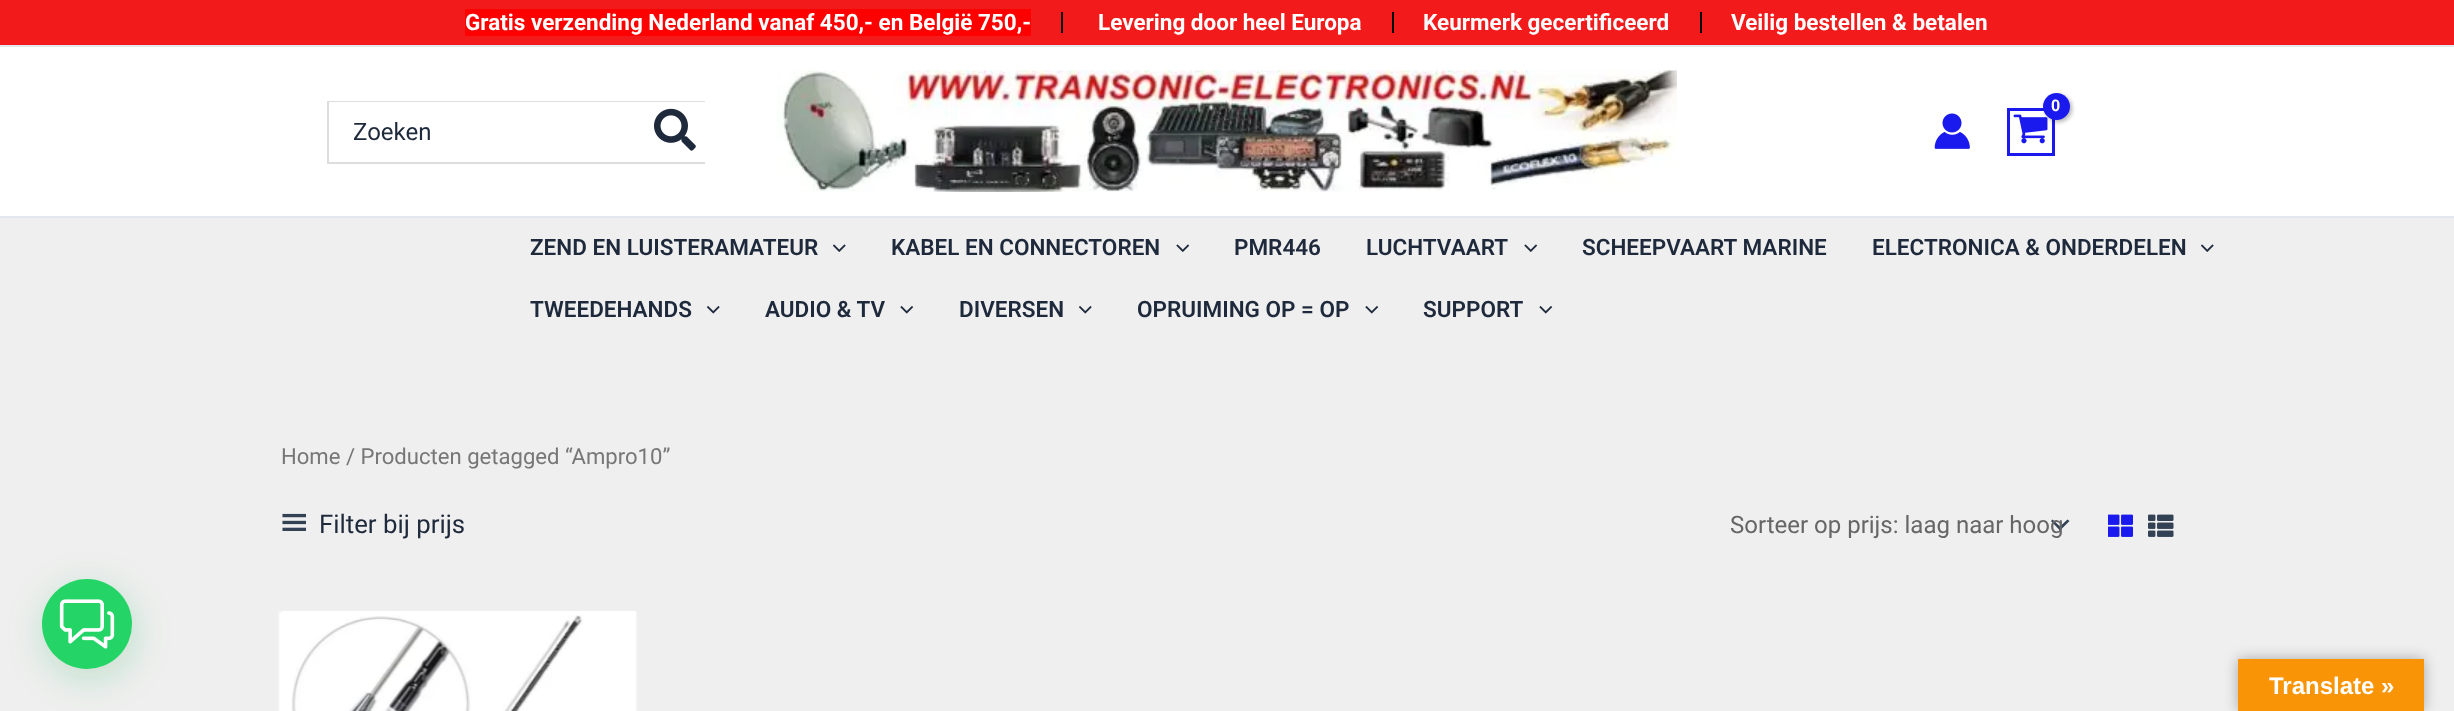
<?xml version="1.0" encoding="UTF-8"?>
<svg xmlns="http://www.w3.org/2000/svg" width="2454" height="711">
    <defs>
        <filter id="blur1" x="-50%" y="-200%" width="200%" height="500%"><feGaussianBlur stdDeviation="2"/></filter>
        <filter id="blur2" x="-50%" y="-200%" width="200%" height="500%"><feGaussianBlur stdDeviation="1"/></filter>
        <filter id="blur3" x="-50%" y="-200%" width="200%" height="500%"><feGaussianBlur stdDeviation="18"/></filter>
        <filter id="blur4" x="-50%" y="-200%" width="200%" height="500%"><feGaussianBlur stdDeviation="7"/></filter>
    </defs>
    <rect width="100%" height="100%" fill="#EFEFEF"/>
    <rect x="0" y="0" width="2454" height="45" fill="#F21A1A"/>
    <rect x="0" y="45" width="2454" height="2" fill="#E2E8F0"/>
    <rect x="465" y="9" width="566" height="27" fill="#FF0000"/>
    <text x="465" y="30" font-family="Roboto" font-size="22.5" font-weight="700" fill="#FFFFFF">Gratis verzending Nederland vanaf 450,- en België 750,-</text>
    <rect x="1061" y="12" width="2" height="21" fill="#000000"/>
    <text x="1098" y="30" font-family="Roboto" font-size="22.5" font-weight="700" fill="#FFFFFF">Levering door heel Europa</text>
    <rect x="1392" y="12" width="2" height="21" fill="#000000"/>
    <text x="1423" y="30" font-family="Roboto" font-size="22.5" font-weight="700" fill="#F9FAFB">Keurmerk gecertificeerd</text>
    <rect x="1700" y="12" width="2" height="21" fill="#000000"/>
    <text x="1731" y="30" font-family="Roboto" font-size="22.5" font-weight="700" fill="#FFFFFF">Veilig bestellen &amp; betalen</text>
    <rect x="0" y="47" width="2454" height="169" fill="#FFFFFF"/>
    <rect x="0" y="216" width="2454" height="2" fill="#E2E8F0"/>
    <image x="777" y="70" width="900" height="122" href="img_01.png"/>
    <rect x="2008.5" y="109.5" width="45" height="45" fill="none" stroke="#1A1AEE" stroke-width="3"/>
    <image x="2013" y="114" width="35" height="30" href="img_02.png"/>
    <rect x="2045" y="95" width="27" height="27" rx="13.5" fill="#000000" fill-opacity="0.3" filter="url(#blur1)"/>
    <circle cx="2056.5" cy="106.5" r="13.5" fill="#1A1AEE"/>
    <text x="2051" y="111" font-family="Roboto" font-size="16" font-weight="700" letter-spacing="-1" fill="#FFFFFF">0</text>
    <image x="1934" y="113" width="36" height="36" href="img_03.png"/>
    <rect x="327" y="101" width="378" height="1" fill="#DDDDDD"/>
    <rect x="327" y="162" width="378" height="2" fill="#DDDDDD"/>
    <rect x="327" y="101" width="2" height="63" fill="#DDDDDD"/>
    <text x="353" y="140" font-family="Roboto" font-size="24" fill="#1E293B">Zoeken</text>
    <image x="654" y="108" width="42" height="43" href="img_04.png"/>
    <text x="530" y="255" font-family="Roboto" font-size="22.5" font-weight="600" fill="#1E293B">ZEND EN LUISTERAMATEUR</text>
    <image x="833" y="244" width="13" height="8" href="img_05.png"/>
    <text x="891" y="255" font-family="Roboto" font-size="22.5" font-weight="600" fill="#1E293B">KABEL EN CONNECTOREN</text>
    <image x="1176" y="244" width="14" height="8" href="img_06.png"/>
    <text x="1234" y="255" font-family="Roboto" font-size="22.5" font-weight="600" fill="#1E293B">PMR446</text>
    <text x="1366" y="255" font-family="Roboto" font-size="22.5" font-weight="600" fill="#1E293B">LUCHTVAART</text>
    <image x="1524" y="244" width="14" height="8" href="img_06.png"/>
    <text x="1582" y="255" font-family="Roboto" font-size="22.5" font-weight="600" fill="#1E293B">SCHEEPVAART MARINE</text>
    <text x="1872" y="255" font-family="Roboto" font-size="22.5" font-weight="600" fill="#1E293B">ELECTRONICA &amp; ONDERDELEN</text>
    <image x="2201" y="244" width="13" height="8" href="img_05.png"/>
    <text x="530" y="317" font-family="Roboto" font-size="22.5" font-weight="600" fill="#1E293B">TWEEDEHANDS</text>
    <image x="707" y="306" width="13" height="8" href="img_07.png"/>
    <text x="765" y="317" font-family="Roboto" font-size="22.5" font-weight="600" fill="#1E293B">AUDIO &amp; TV</text>
    <image x="900" y="306" width="14" height="8" href="img_08.png"/>
    <text x="959" y="317" font-family="Roboto" font-size="22.5" font-weight="600" fill="#1E293B">DIVERSEN</text>
    <image x="1079" y="306" width="13" height="8" href="img_07.png"/>
    <text x="1137" y="317" font-family="Roboto" font-size="22.5" font-weight="600" fill="#1E293B">OPRUIMING OP = OP</text>
    <image x="1365" y="306" width="14" height="8" href="img_08.png"/>
    <text x="1423" y="317" font-family="Roboto" font-size="22.5" font-weight="600" fill="#1E293B">SUPPORT</text>
    <image x="1539" y="306" width="14" height="8" href="img_08.png"/>
    <text x="281" y="464" font-family="Roboto" font-size="22.1" fill="#777777">Home / Producten getagged “Ampro10”</text>
    <image x="282" y="513" width="24" height="18" href="img_09.png"/>
    <text x="319" y="533" font-family="Roboto" font-size="25.75" fill="#1E293B">Filter bij prijs</text>
    <path d="M 2051 521 L 2060 530.5 L 2069.5 521 L 2067.5 519.5 L 2060 526.5 L 2052.5 519.5 Z" fill="#334155"/>
    <text x="1730" y="533" font-family="Roboto" font-size="24" fill="#666666">Sorteer op prijs: laag naar hoog</text>
    <image x="2108" y="514" width="25" height="23" href="img_10.png"/>
    <image x="2148" y="514" width="26" height="23" href="img_11.png"/>
    <rect x="279" y="612" width="357" height="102" fill="#FFFFFF" filter="url(#blur2)"/>
    <image x="282" y="611" width="354" height="100" href="img_12.png"/>
    <rect x="44" y="588" width="90" height="90" rx="45" fill="#1EA951" fill-opacity="0.24" filter="url(#blur3)"/>
    <circle cx="87" cy="624" r="45" fill="#25D466"/>
    <image x="59" y="599" width="56" height="50" href="img_13.png"/>
    <rect x="2238" y="659" width="186" height="52" fill="#000000" fill-opacity="0.3" filter="url(#blur4)"/>
    <rect x="2238" y="659" width="186" height="52" fill="#F89406"/>
    <text x="2269" y="694" font-family="Liberation Sans" font-size="24" font-weight="700" fill="#FFFFFF">Translate »</text>
</svg>
